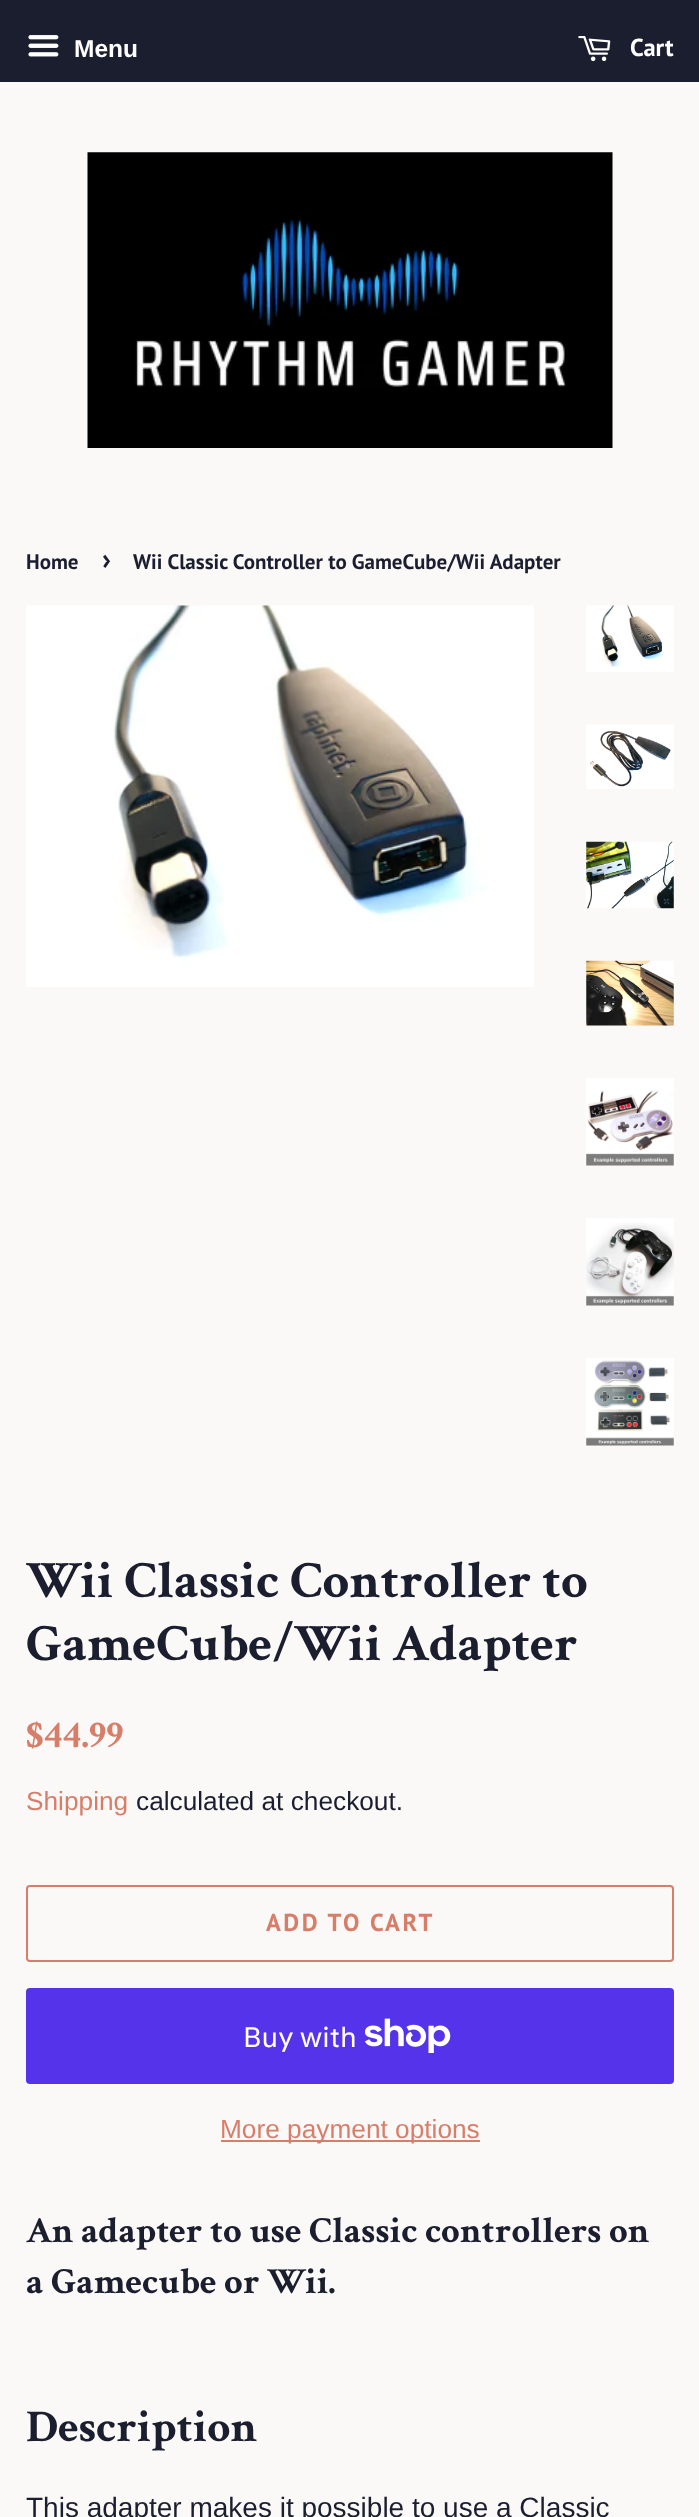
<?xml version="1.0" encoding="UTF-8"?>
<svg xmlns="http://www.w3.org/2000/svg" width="699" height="2517">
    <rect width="100%" height="100%" fill="#FAF9F7"/>
    <rect x="0" y="0" width="699" height="82" fill="#1B1E2F"/>
    <image x="28" y="35" width="31" height="22" href="img_01.png"/>
    <text x="74" y="57" font-family="Liberation Sans" font-size="24.5" font-weight="700" fill="#FFFFFF">Menu</text>
    <image x="578" y="36" width="33" height="26" href="img_02.png"/>
    <text x="630" y="56" font-family="PT Sans" font-size="24.5" font-weight="700" fill="#FFFFFF">Cart</text>
    <image x="87" y="152" width="526" height="296" href="img_03.png"/>
    <text x="26" y="569" font-family="PT Sans" font-size="21" font-weight="700" fill="#1B1E2F">Home</text>
    <text x="102" y="569" font-family="PT Sans" font-size="29" font-weight="700" fill="#1B1E2F">›</text>
    <text x="133" y="569" font-family="PT Sans" font-size="21" font-weight="700" fill="#1B1E2F">Wii Classic Controller to GameCube/Wii Adapter</text>
    <image x="26" y="605" width="508" height="382" href="img_04.png"/>
    <image x="586" y="605" width="88" height="67" href="img_05.png"/>
    <image x="586" y="724" width="88" height="65" href="img_06.png"/>
    <image x="586" y="841" width="88" height="68" href="img_07.png"/>
    <image x="586" y="960" width="88" height="66" href="img_08.png"/>
    <image x="586" y="1078" width="88" height="88" href="img_09.png"/>
    <image x="586" y="1218" width="88" height="88" href="img_10.png"/>
    <image x="586" y="1358" width="88" height="88" href="img_11.png"/>
    <text font-family="Crimson Text" font-size="52.5" font-weight="700" fill="#1B1E2F">
        <tspan x="26" y="1597">Wii Classic Controller to</tspan>
        <tspan x="26" y="1660">GameCube/Wii Adapter</tspan>
    </text>
    <text x="26" y="1747" font-family="Crimson Text" font-size="39" font-weight="700" fill="#D77E6A">$44.99</text>
    <text x="26" y="1810" font-family="Liberation Sans" font-size="26.25" fill="#D77E6A">Shipping</text>
    <text x="136" y="1810" font-family="Liberation Sans" font-size="26.25" fill="#1B1E2F">calculated at checkout.</text>
    <rect x="27" y="1886" width="646" height="75" rx="3" fill="none" stroke="#D77E6A" stroke-width="2"/>
    <text x="266" y="1931" font-family="PT Sans" font-size="24.5" font-weight="700" letter-spacing="2.5" fill="#D77E6A">ADD TO CART</text>
    <rect x="26" y="1988" width="648" height="96" rx="4" fill="#5433EB"/>
    <text x="243" y="2047" font-family="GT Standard" font-size="28" fill="#FFFFFF">Buy with</text>
    <image x="365" y="2018" width="86" height="35" href="img_12.png"/>
    <rect x="221" y="2140" width="259" height="2" fill="#D77E6A"/>
    <text x="220" y="2138" font-family="Liberation Sans" font-size="26.25" fill="#D77E6A">More payment options</text>
    <text font-family="Crimson Text" font-size="36.75" font-weight="700" fill="#1B1E2F">
        <tspan x="26" y="2242">An adapter to use Classic controllers on</tspan>
        <tspan x="26" y="2293">a Gamecube or Wii.</tspan>
    </text>
    <text x="26" y="2441" font-family="Crimson Text" font-size="45.5" font-weight="700" fill="#1B1E2F">Description</text>
    <text x="26" y="2517" font-family="Liberation Sans" font-size="28" fill="#1B1E2F">This adapter makes it possible to use a Classic</text>
</svg>
